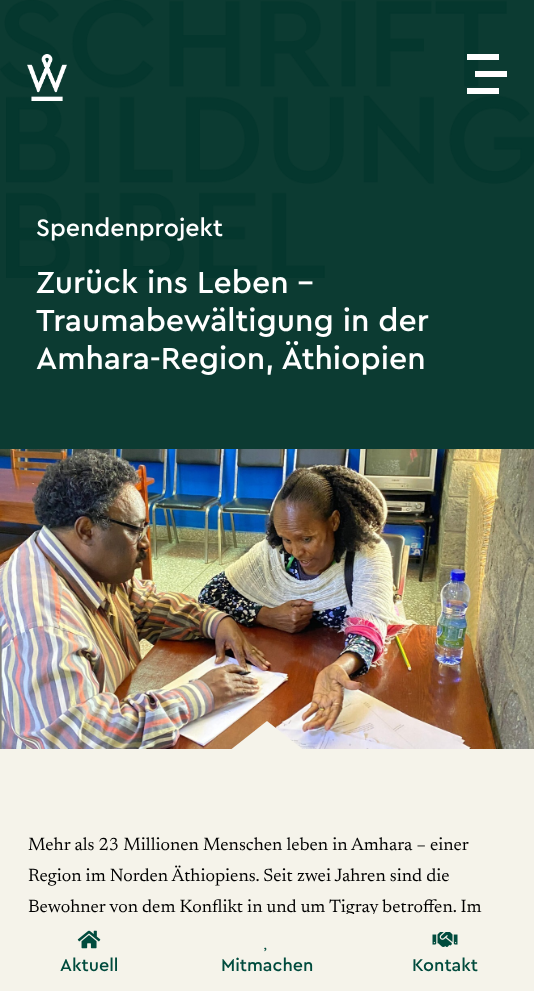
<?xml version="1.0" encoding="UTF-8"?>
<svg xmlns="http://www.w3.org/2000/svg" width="534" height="991">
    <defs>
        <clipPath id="clip1"><rect x="0" y="720" width="534" height="30"/></clipPath>
    </defs>
    <rect width="100%" height="100%" fill="#0C3B32"/>
    <image x="0" y="0" width="534" height="278" href="img_01.png"/>
    <image x="27" y="54" width="40" height="47" href="img_02.png"/>
    <rect x="467" y="54" width="32" height="6" fill="#FFFFFF"/>
    <rect x="475" y="71" width="32" height="6" fill="#FFFFFF"/>
    <rect x="467" y="88" width="32" height="6" fill="#FFFFFF"/>
    <text x="36" y="236" font-family="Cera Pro" font-size="25" font-weight="500" fill="#FFFFFF">Spendenprojekt</text>
    <text font-family="Cera Pro" font-size="32" font-weight="500" fill="#FFFFFF">
        <tspan x="36" y="293">Zurück ins Leben –</tspan>
        <tspan x="36" y="331">Traumabewältigung in der</tspan>
        <tspan x="36" y="369">Amhara-Region, Äthiopien</tspan>
    </text>
    <image x="0" y="449" width="534" height="300" href="img_03.png"/>
    <rect x="0" y="749" width="534" height="165" fill="#F5F3EA"/>
    <g clip-path="url(#clip1)">
        <path d="M 267 721 L 305 751 H 229 Z" fill="#F5F3EA"/>
    </g>
    <text font-family="Newsreader" font-size="18" fill="#000000">
        <tspan x="28" y="850">Mehr als 23 Millionen Menschen leben in Amhara – einer</tspan>
        <tspan x="28" y="881">Region im Norden Äthiopiens. Seit zwei Jahren sind die</tspan>
        <tspan x="28" y="912">Bewohner von dem Konflikt in und um Tigray betroffen. Im</tspan>
    </text>
    <rect x="0" y="914" width="534" height="77" fill="#F5F3EA"/>
    <image x="77" y="930" width="24" height="19" href="img_04.png"/>
    <text x="60" y="971" font-family="Cera Pro" font-size="18" font-weight="500" fill="#004B3D">Aktuell</text>
    <image x="264" y="947" width="3" height="5" href="img_05.png"/>
    <text x="221" y="971" font-family="Cera Pro" font-size="18" font-weight="500" fill="#004B3D">Mitmachen</text>
    <image x="432" y="932" width="26" height="15" href="img_06.png"/>
    <text x="412" y="971" font-family="Cera Pro" font-size="18" font-weight="500" fill="#004B3D">Kontakt</text>
</svg>
